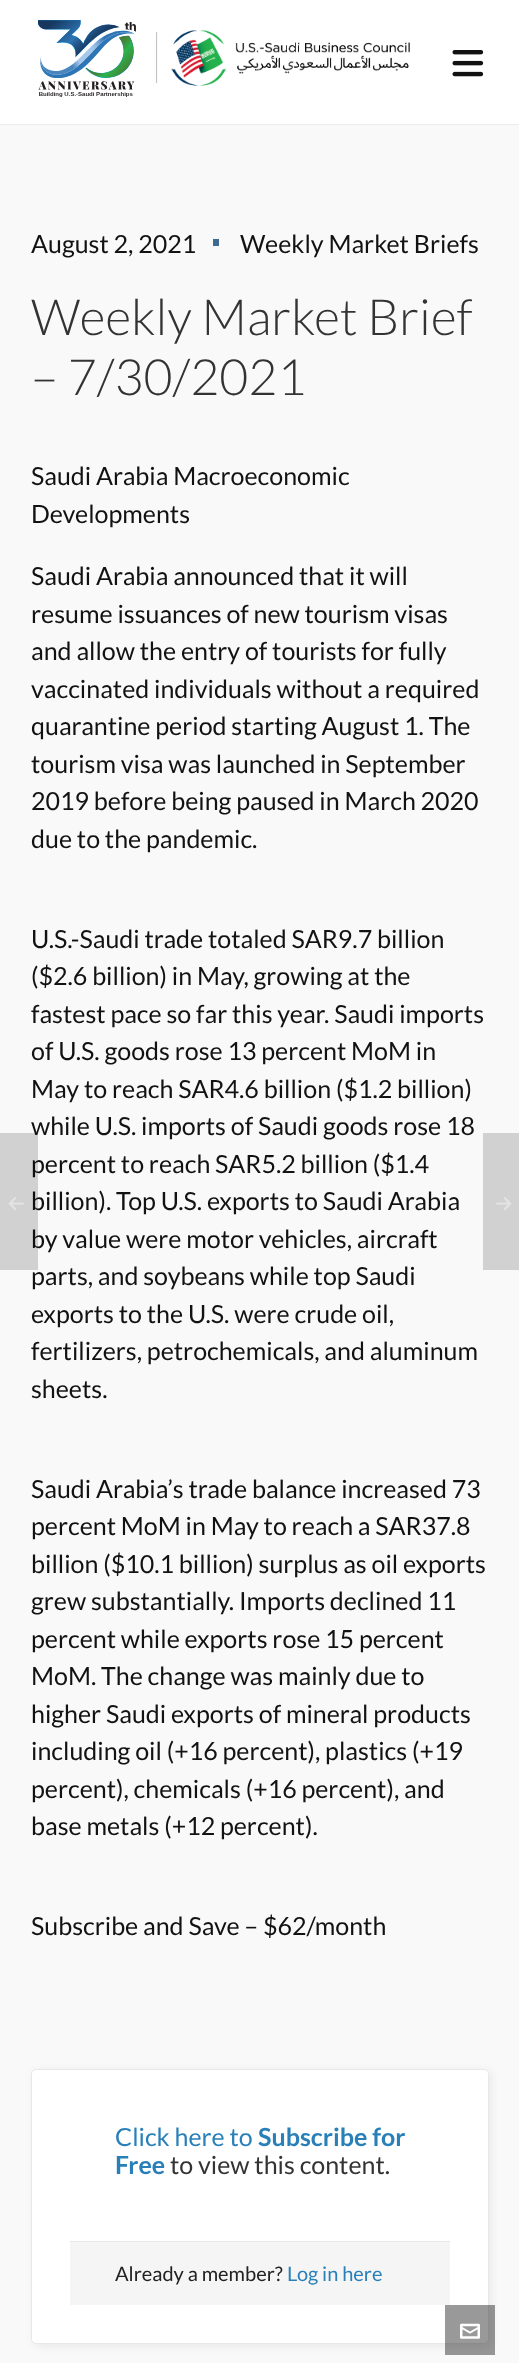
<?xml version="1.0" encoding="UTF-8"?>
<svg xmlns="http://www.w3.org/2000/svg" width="519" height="2363">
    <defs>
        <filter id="blur1" x="-50%" y="-200%" width="200%" height="500%"><feGaussianBlur stdDeviation="4.5"/></filter>
    </defs>
    <rect width="100%" height="100%" fill="#F9F9F9"/>
    <rect x="0" y="0" width="519" height="124" fill="#FFFFFF"/>
    <rect x="0" y="124" width="519" height="1" fill="#EBEBEB"/>
    <image x="38" y="20" width="372" height="77" href="img_01.png"/>
    <image x="452" y="50" width="32" height="27" href="img_02.png"/>
    <text x="31" y="253" font-family="Lato" font-size="25" fill="#121212">August 2, 2021</text>
    <rect x="213" y="239" width="6" height="7" fill="#3F6B93"/>
    <text x="240" y="253" font-family="Lato" font-size="25" fill="#121212">Weekly Market Briefs</text>
    <text font-family="Lato" font-size="50" font-weight="300" fill="#333333">
        <tspan x="31" y="335">Weekly Market Brief</tspan>
        <tspan x="31" y="395">– 7/30/2021</tspan>
    </text>
    <text font-family="Lato" font-size="25" fill="#121212">
        <tspan x="31" y="485">Saudi Arabia Macroeconomic</tspan>
        <tspan x="31" y="523">Developments</tspan>
    </text>
    <text font-family="Lato" font-size="25" fill="#121212">
        <tspan x="31" y="585">Saudi Arabia announced that it will</tspan>
        <tspan x="31" y="623">resume issuances of new tourism visas</tspan>
        <tspan x="31" y="660">and allow the entry of tourists for fully</tspan>
        <tspan x="31" y="698">vaccinated individuals without a required</tspan>
        <tspan x="31" y="735">quarantine period starting August 1. The</tspan>
        <tspan x="31" y="773">tourism visa was launched in September</tspan>
        <tspan x="31" y="810">2019 before being paused in March 2020</tspan>
        <tspan x="31" y="848">due to the pandemic.</tspan>
    </text>
    <text font-family="Lato" font-size="25" fill="#121212">
        <tspan x="31" y="948">U.S.-Saudi trade totaled SAR9.7 billion</tspan>
        <tspan x="31" y="985">($2.6 billion) in May, growing at the</tspan>
        <tspan x="31" y="1023">fastest pace so far this year. Saudi imports</tspan>
        <tspan x="31" y="1060">of U.S. goods rose 13 percent MoM in</tspan>
        <tspan x="31" y="1098">May to reach SAR4.6 billion ($1.2 billion)</tspan>
        <tspan x="31" y="1135">while U.S. imports of Saudi goods rose 18</tspan>
        <tspan x="31" y="1173">percent to reach SAR5.2 billion ($1.4</tspan>
        <tspan x="31" y="1210">billion). Top U.S. exports to Saudi Arabia</tspan>
        <tspan x="31" y="1248">by value were motor vehicles, aircraft</tspan>
        <tspan x="31" y="1285">parts, and soybeans while top Saudi</tspan>
        <tspan x="31" y="1323">exports to the U.S. were crude oil,</tspan>
        <tspan x="31" y="1360">fertilizers, petrochemicals, and aluminum</tspan>
        <tspan x="31" y="1398">sheets.</tspan>
    </text>
    <text font-family="Lato" font-size="25" fill="#121212">
        <tspan x="31" y="1498">Saudi Arabia’s trade balance increased 73</tspan>
        <tspan x="31" y="1535">percent MoM in May to reach a SAR37.8</tspan>
        <tspan x="31" y="1573">billion ($10.1 billion) surplus as oil exports</tspan>
        <tspan x="31" y="1610">grew substantially. Imports declined 11</tspan>
        <tspan x="31" y="1648">percent while exports rose 15 percent</tspan>
        <tspan x="31" y="1685">MoM. The change was mainly due to</tspan>
        <tspan x="31" y="1723">higher Saudi exports of mineral products</tspan>
        <tspan x="31" y="1760">including oil (+16 percent), plastics (+19</tspan>
        <tspan x="31" y="1798">percent), chemicals (+16 percent), and</tspan>
        <tspan x="31" y="1835">base metals (+12 percent).</tspan>
    </text>
    <text x="31" y="1935" font-family="Lato" font-size="25" fill="#121212">Subscribe and Save – $62/month</text>
    <rect x="34" y="2071" width="457" height="275" rx="5" fill="#000000" fill-opacity="0.07" filter="url(#blur1)"/>
    <rect x="31.5" y="2069.5" width="457" height="274" rx="4.5" fill="#FFFFFF" stroke="#E8E8E8"/>
    <text x="115" y="2146" font-family="Lato" font-size="25" fill="#2980B9">Click here to</text>
    <text x="258" y="2146" font-family="Lato" font-size="25" font-weight="700" fill="#2980B9">Subscribe for</text>
    <text x="115" y="2174" font-family="Lato" font-size="25" font-weight="700" fill="#2980B9">Free</text>
    <text x="170" y="2174" font-family="Lato" font-size="25" fill="#333333">to view this content.</text>
    <rect x="70" y="2242" width="380" height="63" fill="#F5F5F5"/>
    <rect x="70" y="2241" width="380" height="1" fill="#E8E8E8"/>
    <text x="115" y="2281" font-family="Lato" font-size="20" fill="#222222">Already a member?</text>
    <text x="287" y="2281" font-family="Lato" font-size="20" fill="#2980B9">Log in here</text>
    <rect x="0" y="1133" width="38" height="137" fill="#000000" fill-opacity="0.16"/>
    <image x="8" y="1197" width="16" height="13" href="img_03.png"/>
    <rect x="483" y="1133" width="36" height="137" fill="#D1D1D1"/>
    <image x="496" y="1197" width="16" height="13" href="img_04.png"/>
    <rect x="445" y="2305" width="50" height="50" fill="#000000" fill-opacity="0.4"/>
    <image x="460" y="2323" width="20" height="16" href="img_05.png"/>
</svg>
